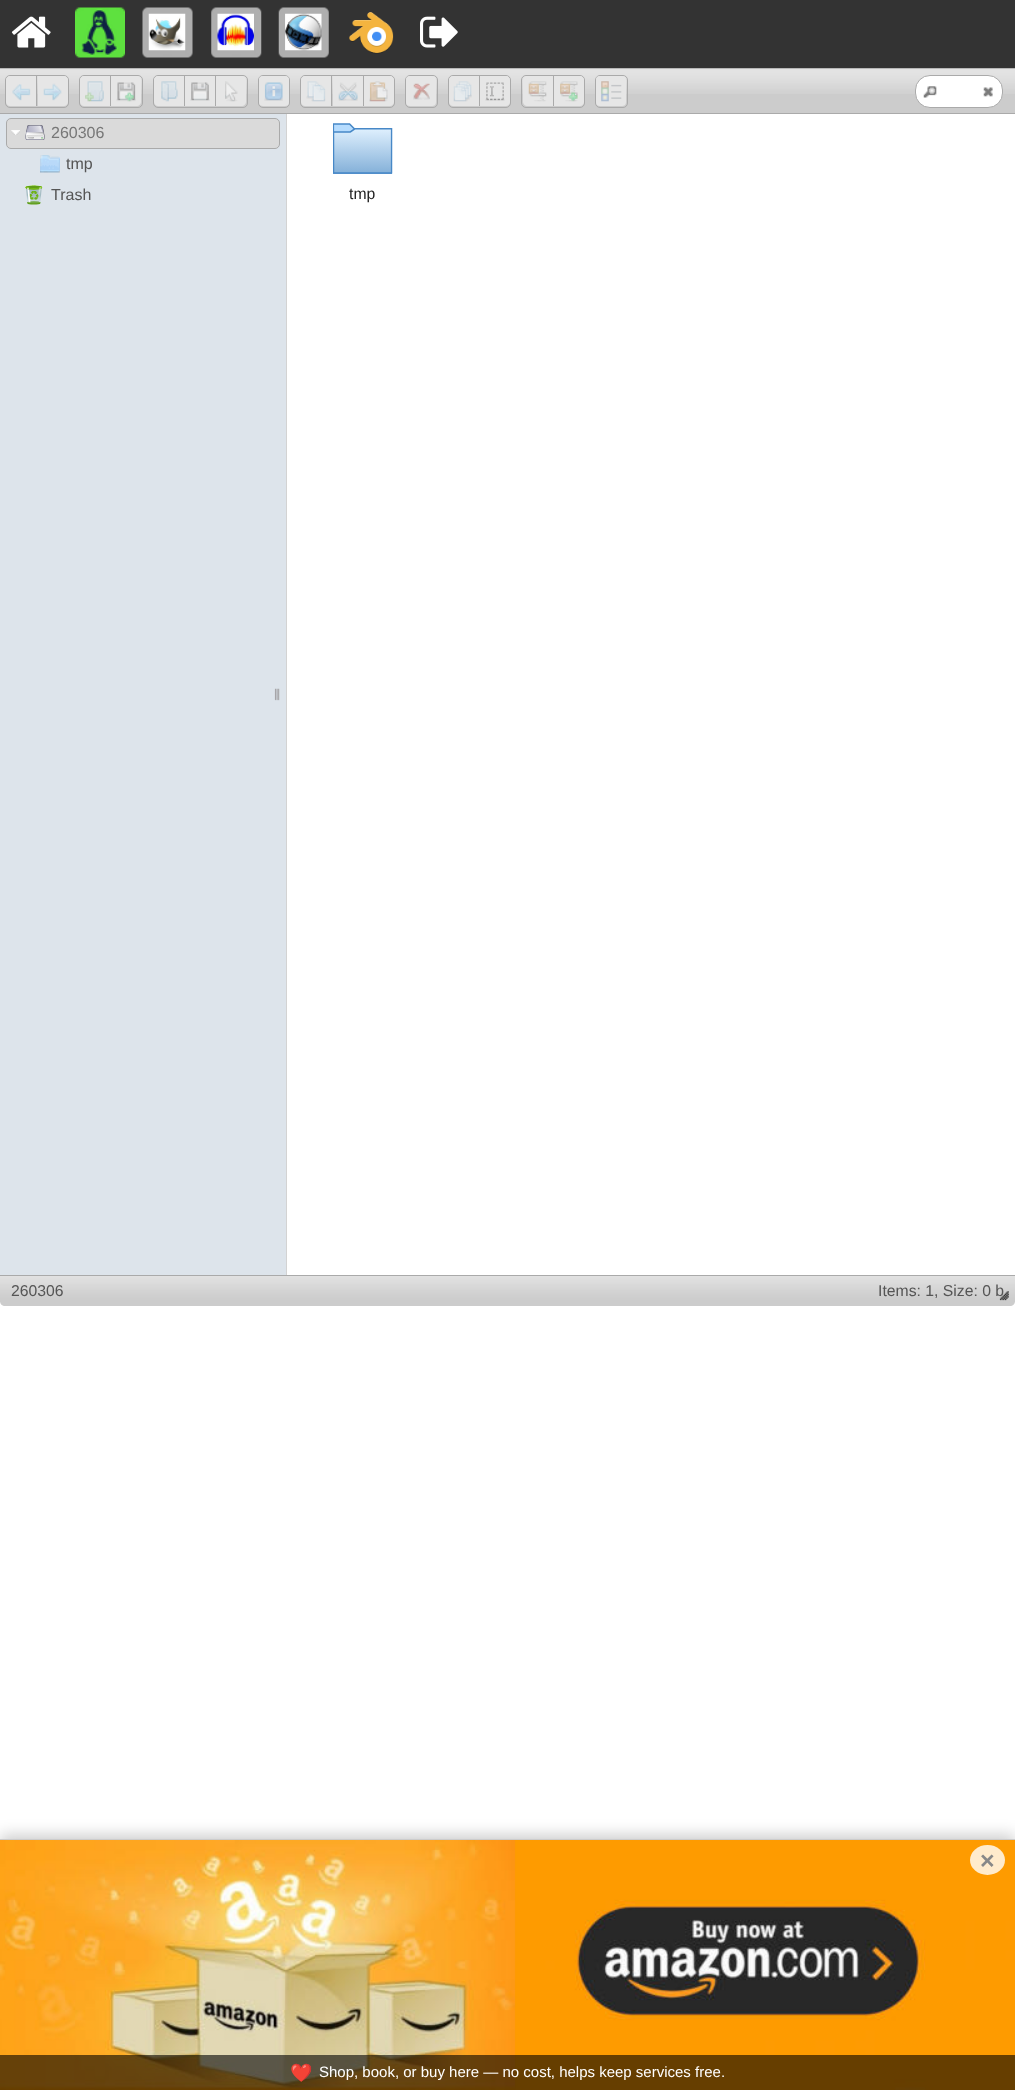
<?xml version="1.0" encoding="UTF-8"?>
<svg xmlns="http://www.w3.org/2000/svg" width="1015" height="2090">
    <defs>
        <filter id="blur1" x="-50%" y="-200%" width="200%" height="500%"><feGaussianBlur stdDeviation="7.5"/></filter>
    </defs>
    <rect width="100%" height="100%" fill="#FFFFFF"/>
    <rect x="0" y="0" width="1015" height="68" fill="#333333"/>
    <rect x="0" y="68" width="1015" height="1" fill="#A9A9A9"/>
    <image x="11" y="16" width="40" height="32" href="img_01.png"/>
    <image x="75" y="7" width="50" height="51" href="img_02.png"/>
    <image x="142" y="7" width="51" height="51" href="img_03.png"/>
    <image x="211" y="7" width="51" height="51" href="img_04.png"/>
    <image x="278" y="7" width="51" height="51" href="img_05.png"/>
    <image x="349" y="12" width="45" height="42" href="img_06.png"/>
    <image x="420" y="16" width="38" height="32" href="img_07.png"/>
    <rect x="0" y="94" width="1015" height="19" fill="#CCCCCC"/>
    <image x="0" y="68" width="1015" height="26" href="img_08.png"/>
    <rect x="0" y="113" width="1015" height="1" fill="#AAAAAA"/>
    <rect x="5.5" y="75.5" width="63" height="32" rx="4.5" fill="none" stroke="#AAAAAA"/>
    <path d="M 10 76 H 36 V 106 H 10 C 8 106 6 104 6 102 V 80 C 6 78 8 76 10 76 Z" fill="#E6E6E6"/>
    <image x="12" y="84" width="19" height="17" href="img_09.png"/>
    <rect x="36" y="76" width="1" height="30" fill="#AAAAAA"/>
    <path d="M 38 76 H 64 C 66 76 68 78 68 80 V 102 C 68 104 66 106 64 106 H 38 Z" fill="#E6E6E6"/>
    <image x="43" y="83" width="19" height="18" href="img_10.png"/>
    <rect x="79.5" y="75.5" width="63" height="32" rx="4.5" fill="none" stroke="#AAAAAA"/>
    <path d="M 84 76 H 110 V 106 H 84 C 82 106 80 104 80 102 V 80 C 80 78 82 76 84 76 Z" fill="#E6E6E6"/>
    <image x="85" y="81" width="19" height="21" href="img_11.png"/>
    <rect x="110" y="76" width="1" height="30" fill="#AAAAAA"/>
    <path d="M 111 76 H 137 C 139 76 141 78 141 80 V 102 C 141 104 139 106 137 106 H 111 Z" fill="#E6E6E6"/>
    <image x="116" y="82" width="20" height="20" href="img_12.png"/>
    <rect x="153.5" y="75.5" width="94" height="32" rx="4.5" fill="none" stroke="#AAAAAA"/>
    <path d="M 158 76 H 184 V 106 H 158 C 156 106 154 104 154 102 V 80 C 154 78 156 76 158 76 Z" fill="#E6E6E6"/>
    <image x="161" y="81" width="17" height="21" href="img_13.png"/>
    <rect x="184" y="76" width="1" height="30" fill="#AAAAAA"/>
    <rect x="185" y="76" width="30" height="30" fill="#E6E6E6"/>
    <image x="190" y="82" width="20" height="19" href="img_14.png"/>
    <rect x="215" y="76" width="1" height="30" fill="#AAAAAA"/>
    <path d="M 216 76 H 242 C 244 76 246 78 246 80 V 102 C 246 104 244 106 242 106 H 216 Z" fill="#E6E6E6"/>
    <image x="225" y="81" width="13" height="21" href="img_15.png"/>
    <rect x="258.5" y="75.5" width="31" height="32" rx="4.5" fill="none" stroke="#AAAAAA"/>
    <rect x="259" y="76" width="30" height="30" rx="4" fill="#E6E6E6"/>
    <image x="264" y="82" width="19" height="19" href="img_16.png"/>
    <rect x="300.5" y="75.5" width="94" height="32" rx="4.5" fill="none" stroke="#AAAAAA"/>
    <path d="M 305 76 H 331 V 106 H 305 C 303 106 301 104 301 102 V 80 C 301 78 303 76 305 76 Z" fill="#E6E6E6"/>
    <image x="306" y="81" width="20" height="21" href="img_17.png"/>
    <rect x="331" y="76" width="1" height="30" fill="#AAAAAA"/>
    <rect x="333" y="76" width="30" height="30" fill="#E6E6E6"/>
    <image x="338" y="82" width="20" height="19" href="img_18.png"/>
    <rect x="363" y="76" width="1" height="30" fill="#AAAAAA"/>
    <path d="M 364 76 H 390 C 392 76 394 78 394 80 V 102 C 394 104 392 106 390 106 H 364 Z" fill="#E6E6E6"/>
    <image x="369" y="81" width="19" height="21" href="img_19.png"/>
    <rect x="405.5" y="75.5" width="32" height="32" rx="4.5" fill="none" stroke="#AAAAAA"/>
    <rect x="406" y="76" width="30" height="30" rx="4" fill="#E6E6E6"/>
    <image x="413" y="83" width="17" height="17" href="img_20.png"/>
    <rect x="448.5" y="75.5" width="62" height="32" rx="4.5" fill="none" stroke="#AAAAAA"/>
    <path d="M 453 76 H 479 V 106 H 453 C 451 106 449 104 449 102 V 80 C 449 78 451 76 453 76 Z" fill="#E6E6E6"/>
    <image x="453" y="81" width="19" height="21" href="img_21.png"/>
    <rect x="479" y="76" width="1" height="30" fill="#AAAAAA"/>
    <path d="M 480 76 H 506 C 508 76 510 78 510 80 V 102 C 510 104 508 106 506 106 H 480 Z" fill="#E6E6E6"/>
    <image x="485" y="82" width="20" height="19" href="img_22.png"/>
    <rect x="521.5" y="75.5" width="63" height="32" rx="4.5" fill="none" stroke="#AAAAAA"/>
    <path d="M 527 76 H 553 V 106 H 527 C 525 106 523 104 523 102 V 80 C 523 78 525 76 527 76 Z" fill="#E6E6E6"/>
    <image x="528" y="81" width="19" height="21" href="img_23.png"/>
    <rect x="553" y="76" width="1" height="30" fill="#AAAAAA"/>
    <path d="M 554 76 H 580 C 582 76 584 78 584 80 V 102 C 584 104 582 106 580 106 H 554 Z" fill="#E6E6E6"/>
    <image x="560" y="81" width="18" height="21" href="img_24.png"/>
    <rect x="595.5" y="75.5" width="32" height="32" rx="4.5" fill="none" stroke="#AAAAAA"/>
    <rect x="596" y="76" width="30" height="30" rx="4" fill="#E6E6E6"/>
    <image x="601" y="81" width="21" height="21" href="img_25.png"/>
    <rect x="915.5" y="75.5" width="87" height="32" rx="14.5" fill="#FFFFFF" stroke="#AAAAAA"/>
    <image x="923" y="86" width="14" height="12" href="img_26.png"/>
    <image x="983" y="87" width="10" height="10" href="img_27.png"/>
    <rect x="0" y="114" width="286" height="1161" fill="#DDE4EB"/>
    <rect x="286" y="114" width="1" height="1161" fill="#D3D3D3"/>
    <rect x="6.5" y="118.5" width="273" height="30" rx="4.5" fill="#DADADA" stroke="#AAAAAA"/>
    <image x="11" y="130" width="9" height="5" href="img_28.png"/>
    <image x="25" y="125" width="20" height="15" href="img_29.png"/>
    <text x="51" y="138" font-family="Liberation Sans" font-size="16" fill="#777777">260306</text>
    <image x="40" y="155" width="20" height="18" href="img_30.png"/>
    <text x="66" y="169" font-family="Liberation Sans" font-size="16" fill="#555555">tmp</text>
    <image x="25" y="185" width="18" height="20" href="img_31.png"/>
    <text x="51" y="200" font-family="Liberation Sans" font-size="16" fill="#555555">Trash</text>
    <image x="274" y="688" width="6" height="13" href="img_32.png"/>
    <image x="333" y="123" width="60" height="51" href="img_33.png"/>
    <text x="349" y="199" font-family="Liberation Sans" font-size="15.75" fill="#222222">tmp</text>
    <image x="0" y="1276" width="1015" height="30" href="img_34.png"/>
    <rect x="0" y="1275" width="1015" height="1" fill="#AAAAAA"/>
    <text x="11" y="1296" font-family="Liberation Sans" font-size="15.75" fill="#555555">260306</text>
    <text x="878" y="1296" font-family="Liberation Sans" font-size="15.75" fill="#555555">Items: 1, Size: 0 b</text>
    <image x="999" y="1291" width="10" height="10" href="img_35.png"/>
    <rect x="0" y="1835" width="1015" height="251" fill="#000000" fill-opacity="0.2" filter="url(#blur1)"/>
    <rect x="0" y="1839" width="1015" height="1" fill="#CCCCCC"/>
    <image x="0" y="1840" width="1015" height="250" href="img_36.png"/>
    <ellipse cx="987.5" cy="1860" rx="17.5" ry="15" fill="#FFEBCC"/>
    <text x="980" y="1869" font-family="Liberation Sans" font-size="25" font-weight="700" fill="#888888">×</text>
    <rect x="0" y="2055" width="1015" height="35" fill="#000000" fill-opacity="0.6"/>
    <text x="290" y="2079" font-family="Noto Color Emoji" font-size="18" fill="#FFFFFF">❤️</text>
    <text x="319" y="2077" font-family="Liberation Sans" font-size="15" fill="#FFFFFF">Shop, book, or buy here — no cost, helps keep services free.</text>
</svg>
